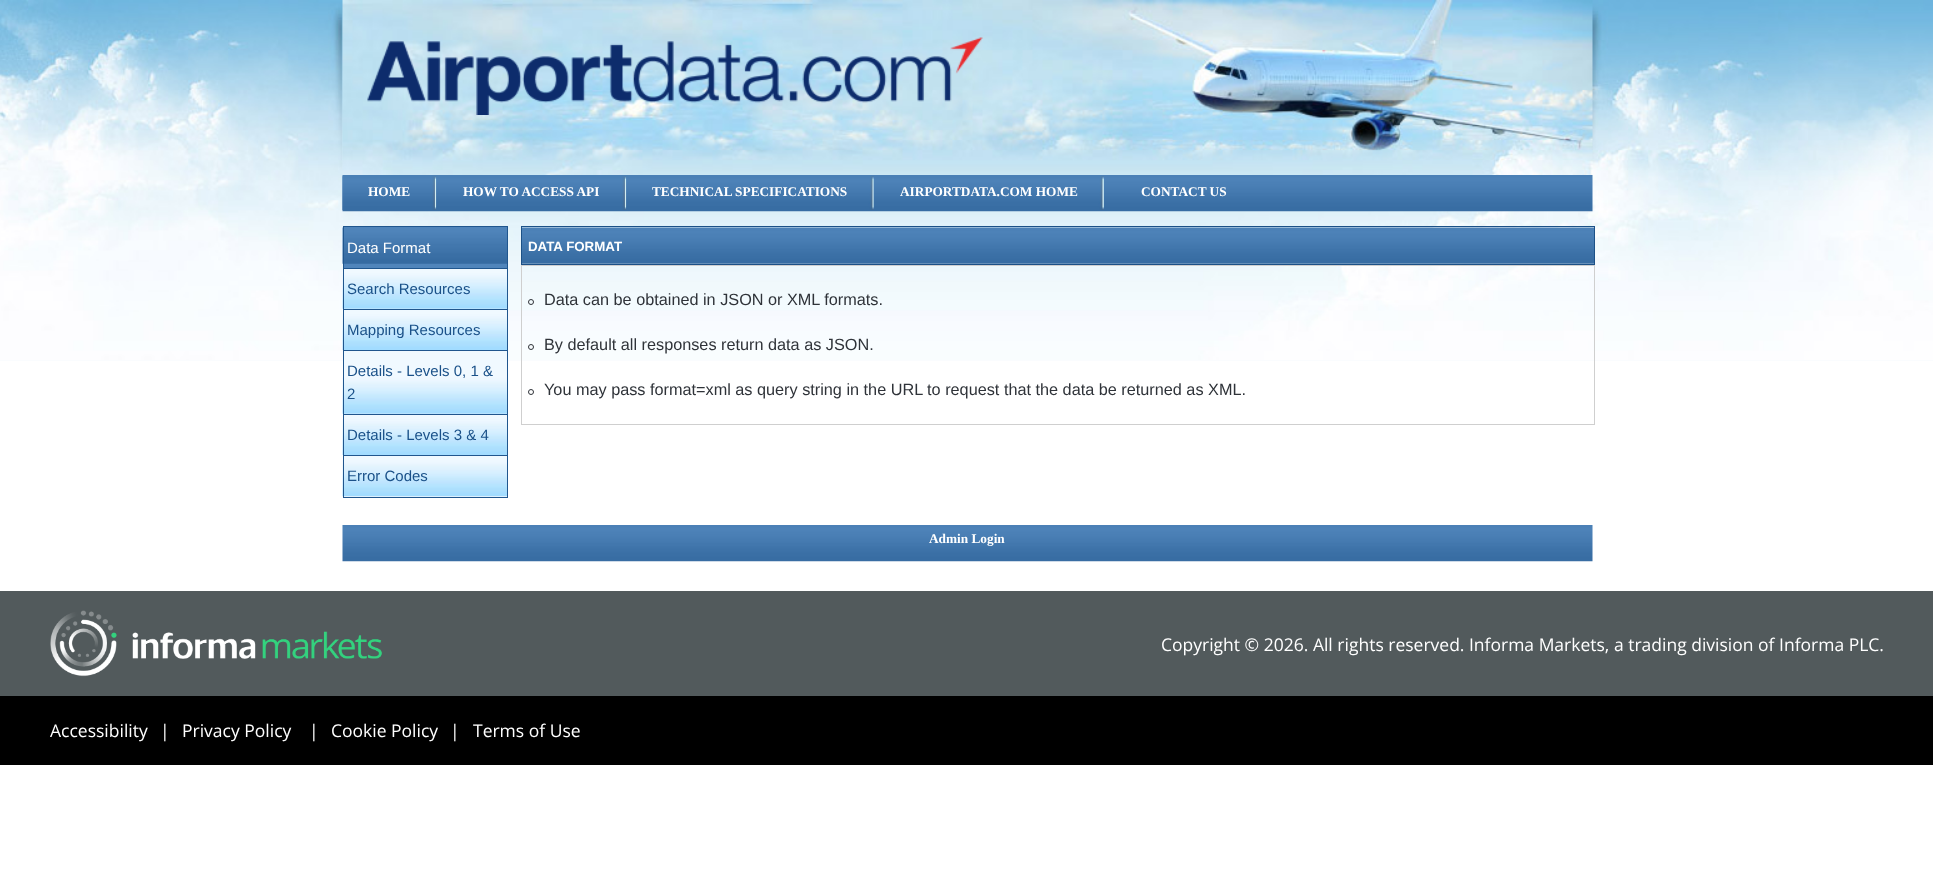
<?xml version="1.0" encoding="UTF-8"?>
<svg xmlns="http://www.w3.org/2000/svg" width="1933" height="875">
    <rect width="100%" height="100%" fill="#FFFFFF"/>
    <image x="0" y="360" width="1933" height="1" href="img_01.png"/>
    <image x="0" y="0" width="1933" height="360" href="img_02.png"/>
    <image x="342" y="0" width="1251" height="175" href="img_03.png"/>
    <image x="367" y="37" width="616" height="78" href="img_04.png"/>
    <image x="342" y="175" width="1251" height="37" href="img_05.png"/>
    <image x="342" y="176" width="95" height="34" href="img_06.png"/>
    <text x="368" y="196" font-family="Liberation Serif" font-size="13.3" font-weight="700" fill="#FFFFFF">HOME</text>
    <image x="436" y="176" width="191" height="34" href="img_07.png"/>
    <text x="463" y="196" font-family="Liberation Serif" font-size="13.3" font-weight="700" fill="#FFFFFF">HOW TO ACCESS API</text>
    <image x="626" y="176" width="248" height="34" href="img_08.png"/>
    <text x="652" y="196" font-family="Liberation Serif" font-size="13.3" font-weight="700" fill="#FFFFFF">TECHNICAL SPECIFICATIONS</text>
    <image x="873" y="176" width="231" height="34" href="img_09.png"/>
    <text x="900" y="196" font-family="Liberation Serif" font-size="13.3" font-weight="700" fill="#FFFFFF">AIRPORTDATA.COM HOME</text>
    <text x="1141" y="196" font-family="Liberation Serif" font-size="13.3" font-weight="700" fill="#FFFFFF">CONTACT US</text>
    <rect x="344" y="227" width="163" height="41" fill="#5085BB"/>
    <image x="342" y="227" width="165" height="37" href="img_10.png"/>
    <rect x="343.5" y="226.5" width="164" height="42" fill="none" stroke="#20568E"/>
    <text x="347" y="253" font-family="Liberation Sans" font-size="15" fill="#FFFFFF">Data Format</text>
    <rect x="344" y="269" width="163" height="40" fill="#F0F9FF"/>
    <image x="342" y="273" width="165" height="36" href="img_11.png"/>
    <rect x="343.5" y="268.5" width="164" height="41" fill="none" stroke="#20568E"/>
    <text x="347" y="294" font-family="Liberation Sans" font-size="15" fill="#1A5189">Search Resources</text>
    <rect x="344" y="310" width="163" height="4" fill="#F0F9FF"/>
    <image x="342" y="314" width="165" height="36" href="img_12.png"/>
    <rect x="343.5" y="309.5" width="164" height="41" fill="none" stroke="#20568E"/>
    <text x="347" y="335" font-family="Liberation Sans" font-size="15" fill="#1A5189">Mapping Resources</text>
    <rect x="344" y="351" width="163" height="63" fill="#F0F9FF"/>
    <image x="342" y="377" width="165" height="37" href="img_13.png"/>
    <rect x="343.5" y="350.5" width="164" height="64" fill="none" stroke="#20568E"/>
    <text font-family="Liberation Sans" font-size="15" fill="#1A5189">
        <tspan x="347" y="376">Details - Levels 0, 1 &amp;</tspan>
        <tspan x="347" y="399">2</tspan>
    </text>
    <rect x="344" y="415" width="163" height="4" fill="#F0F9FF"/>
    <image x="342" y="419" width="165" height="36" href="img_14.png"/>
    <rect x="343.5" y="414.5" width="164" height="41" fill="none" stroke="#20568E"/>
    <text x="347" y="440" font-family="Liberation Sans" font-size="15" fill="#1A5189">Details - Levels 3 &amp; 4</text>
    <rect x="344" y="456" width="163" height="41" fill="#F0F9FF"/>
    <image x="342" y="460" width="165" height="37" href="img_15.png"/>
    <rect x="343.5" y="455.5" width="164" height="42" fill="none" stroke="#20568E"/>
    <text x="347" y="481" font-family="Liberation Sans" font-size="15" fill="#1A5189">Error Codes</text>
    <image x="522" y="227" width="1072" height="37" href="img_16.png"/>
    <rect x="521.5" y="226.5" width="1073" height="38" fill="none" stroke="#1C5187"/>
    <text x="528" y="251" font-family="Liberation Sans" font-size="13.3" font-weight="700" fill="#FFFFFF">DATA FORMAT</text>
    <rect x="521.5" y="265.5" width="1073" height="159" fill="none" stroke="#CFCFCF"/>
    <circle cx="531" cy="302" r="2.5" fill="none" stroke="#2F3339"/>
    <text x="544" y="305" font-family="Liberation Sans" font-size="16.25" fill="#2F3339">Data can be obtained in JSON or XML formats.</text>
    <circle cx="531" cy="347" r="2.5" fill="none" stroke="#2F3339"/>
    <text x="544" y="350" font-family="Liberation Sans" font-size="16.25" fill="#2F3339">By default all responses return data as JSON.</text>
    <circle cx="531" cy="392" r="2.5" fill="none" stroke="#2F3339"/>
    <text x="544" y="395" font-family="Liberation Sans" font-size="16.25" fill="#2F3339">You may pass format=xml as query string in the URL to request that the data be returned as XML.</text>
    <image x="342" y="525" width="1251" height="37" href="img_17.png"/>
    <text x="929" y="543" font-family="Liberation Serif" font-size="13.3" font-weight="700" fill="#FFFFFF">Admin Login</text>
    <rect x="0" y="591" width="1933" height="105" fill="#525A5C"/>
    <image x="50" y="610" width="332" height="67" href="img_18.png"/>
    <text x="1161" y="651" font-family="Open Sans" font-size="17.5" fill="#FFFFFF">Copyright © 2026. All rights reserved. Informa Markets, a trading division of Informa PLC.</text>
    <rect x="0" y="696" width="1933" height="69" fill="#000000"/>
    <text x="50" y="737" font-family="Open Sans" font-size="17.5" fill="#FFFFFF">Accessibility</text>
    <text x="160" y="737" font-family="Open Sans" font-size="17.5" fill="#FFFFFF">|</text>
    <text x="182" y="737" font-family="Open Sans" font-size="17.5" fill="#FFFFFF">Privacy Policy</text>
    <text x="309" y="737" font-family="Open Sans" font-size="17.5" fill="#FFFFFF">|</text>
    <text x="331" y="737" font-family="Open Sans" font-size="17.5" fill="#FFFFFF">Cookie Policy</text>
    <text x="450" y="737" font-family="Open Sans" font-size="17.5" fill="#FFFFFF">|</text>
    <text x="473" y="737" font-family="Open Sans" font-size="17.5" fill="#FFFFFF">Terms of Use</text>
</svg>
